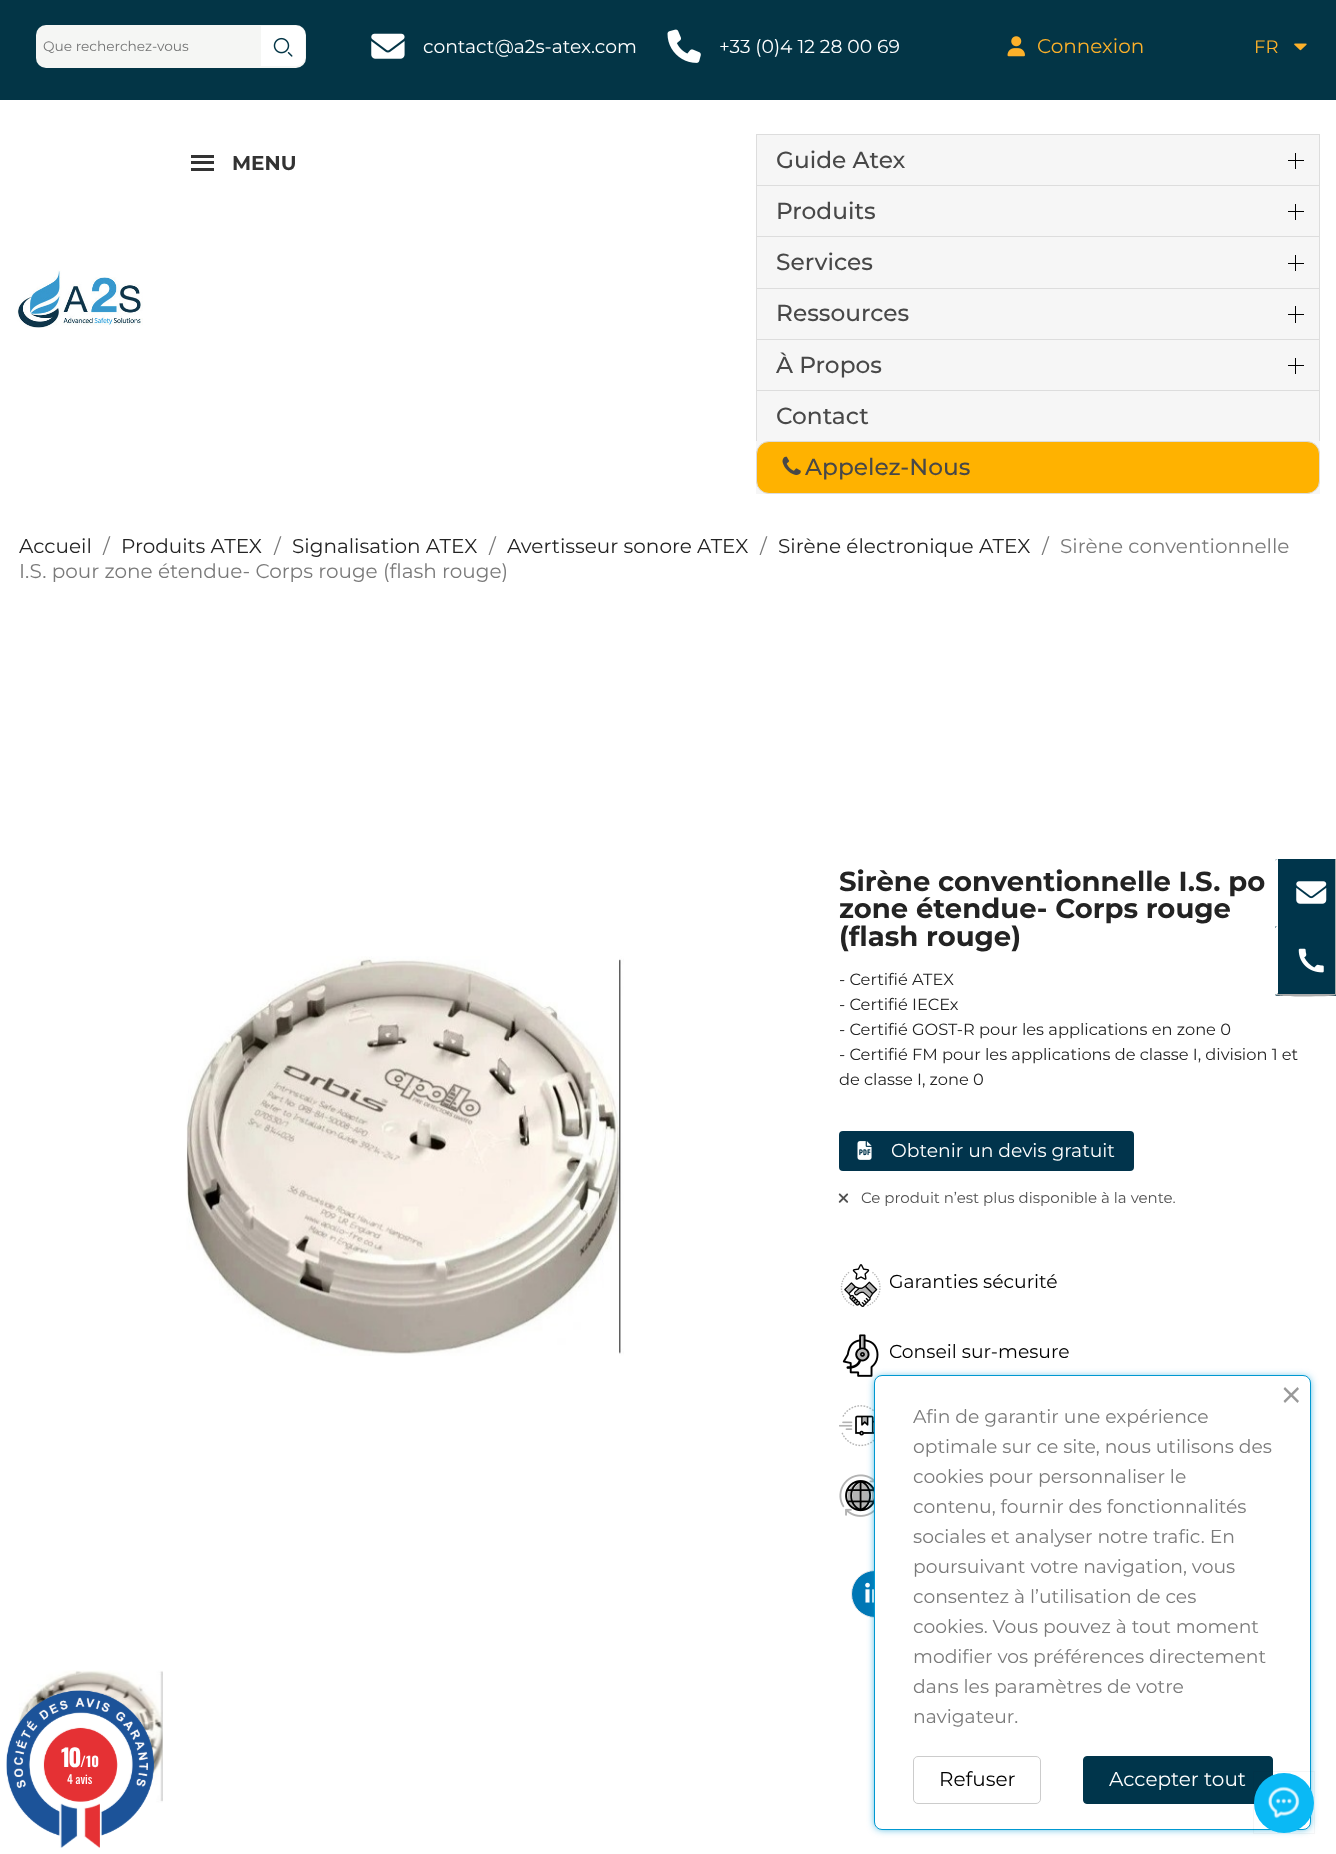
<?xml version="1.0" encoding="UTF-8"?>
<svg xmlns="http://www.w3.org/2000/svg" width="1336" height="1854">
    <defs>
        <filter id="blur1" x="-50%" y="-200%" width="200%" height="500%"><feGaussianBlur stdDeviation="4.5"/></filter>
    </defs>
    <rect width="100%" height="100%" fill="#FFFFFF"/>
    <rect x="0" y="0" width="1336" height="100" fill="#033546"/>
    <rect x="36" y="25" width="270" height="43" rx="10" fill="#F5F6F4"/>
    <text x="43" y="51" font-family="Montserrat" font-size="13.75" fill="#737474">Que recherchez-vous</text>
    <path d="M 261 26 H 296 C 301 26 305 30 305 35 V 57 C 305 62 301 66 296 66 H 261 Z" fill="#FFFFFF"/>
    <image x="273" y="37" width="20" height="20" href="img_01.png"/>
    <image x="371" y="33" width="34" height="26" href="img_02.png"/>
    <text x="423" y="53" font-family="Montserrat" font-size="18.75" fill="#FFFFFF">contact@a2s-atex.com</text>
    <image x="667" y="29" width="34" height="34" href="img_03.png"/>
    <text x="719" y="53" font-family="Montserrat" font-size="18.75" fill="#FFFFFF">+33 (0)4 12 28 00 69</text>
    <image x="1007" y="36" width="18" height="21" href="img_04.png"/>
    <text x="1037" y="53" font-family="Montserrat" font-size="20" fill="#FDB12A">Connexion</text>
    <text x="1254" y="53" font-family="Montserrat" font-size="18" fill="#FDB12A">FR</text>
    <image x="1294" y="43" width="13" height="8" href="img_05.png"/>
    <image x="17" y="270" width="126" height="58" href="img_06.png"/>
    <rect x="191" y="155" width="23" height="3" fill="#333333"/>
    <rect x="191" y="161" width="23" height="3" fill="#333333"/>
    <rect x="191" y="168" width="23" height="3" fill="#333333"/>
    <text x="232" y="170" font-family="Montserrat" font-size="20" font-weight="700" fill="#333333">MENU</text>
    <rect x="756" y="135" width="564" height="359" fill="#F6F6F6"/>
    <rect x="756" y="134" width="564" height="1" fill="#DDDDDD"/>
    <rect x="1319" y="134" width="1" height="51" fill="#DDDDDD"/>
    <rect x="756" y="134" width="1" height="51" fill="#DDDDDD"/>
    <text x="776" y="168" font-family="Montserrat" font-size="23.25" font-weight="500" fill="#484848">Guide Atex</text>
    <rect x="1288" y="160" width="16" height="1" fill="#000000"/>
    <rect x="1295" y="153" width="1" height="16" fill="#000000"/>
    <rect x="756" y="185" width="564" height="1" fill="#DDDDDD"/>
    <rect x="1319" y="185" width="1" height="51" fill="#DDDDDD"/>
    <rect x="756" y="185" width="1" height="51" fill="#DDDDDD"/>
    <text x="776" y="219" font-family="Montserrat" font-size="23.25" font-weight="500" fill="#484848">Produits</text>
    <rect x="1288" y="211" width="16" height="1" fill="#000000"/>
    <rect x="1295" y="204" width="1" height="16" fill="#000000"/>
    <rect x="756" y="236" width="564" height="1" fill="#DDDDDD"/>
    <rect x="1319" y="236" width="1" height="52" fill="#DDDDDD"/>
    <rect x="756" y="236" width="1" height="52" fill="#DDDDDD"/>
    <text x="776" y="270" font-family="Montserrat" font-size="23.25" font-weight="500" fill="#484848">Services</text>
    <rect x="1288" y="263" width="16" height="1" fill="#000000"/>
    <rect x="1295" y="255" width="1" height="16" fill="#000000"/>
    <rect x="756" y="288" width="564" height="1" fill="#DDDDDD"/>
    <rect x="1319" y="288" width="1" height="51" fill="#DDDDDD"/>
    <rect x="756" y="288" width="1" height="51" fill="#DDDDDD"/>
    <text x="776" y="321" font-family="Montserrat" font-size="23.25" font-weight="500" fill="#484848">Ressources</text>
    <rect x="1288" y="314" width="16" height="1" fill="#000000"/>
    <rect x="1295" y="306" width="1" height="17" fill="#000000"/>
    <rect x="756" y="339" width="564" height="1" fill="#DDDDDD"/>
    <rect x="1319" y="339" width="1" height="51" fill="#DDDDDD"/>
    <rect x="756" y="339" width="1" height="51" fill="#DDDDDD"/>
    <text x="776" y="373" font-family="Montserrat" font-size="23.25" font-weight="500" fill="#484848">À Propos</text>
    <rect x="1288" y="365" width="16" height="1" fill="#000000"/>
    <rect x="1295" y="358" width="1" height="16" fill="#000000"/>
    <rect x="756" y="390" width="564" height="1" fill="#DDDDDD"/>
    <rect x="1319" y="390" width="1" height="51" fill="#DDDDDD"/>
    <rect x="756" y="390" width="1" height="51" fill="#DDDDDD"/>
    <text x="776" y="424" font-family="Montserrat" font-size="23.25" font-weight="500" fill="#484848">Contact</text>
    <rect x="756.5" y="441.5" width="563" height="52" rx="12.5" fill="#FFB200" stroke="#DDDDDD"/>
    <image x="782" y="456" width="19" height="19" href="img_07.png"/>
    <text x="805" y="475" font-family="Montserrat" font-size="23.25" font-weight="500" fill="#484848">Appelez-Nous</text>
    <text x="19" y="553" font-family="Montserrat" font-size="20" fill="#232323">Accueil</text>
    <text x="103" y="553" font-family="Montserrat" font-size="20" fill="#7A7A7A">/</text>
    <text x="121" y="553" font-family="Montserrat" font-size="20" fill="#232323">Produits ATEX</text>
    <text x="274" y="553" font-family="Montserrat" font-size="20" fill="#7A7A7A">/</text>
    <text x="292" y="553" font-family="Montserrat" font-size="20" fill="#232323">Signalisation ATEX</text>
    <text x="489" y="553" font-family="Montserrat" font-size="20" fill="#7A7A7A">/</text>
    <text x="507" y="553" font-family="Montserrat" font-size="20" fill="#232323">Avertisseur sonore ATEX</text>
    <text x="760" y="553" font-family="Montserrat" font-size="20" fill="#7A7A7A">/</text>
    <text x="778" y="553" font-family="Montserrat" font-size="20" fill="#232323">Sirène électronique ATEX</text>
    <text x="1042" y="553" font-family="Montserrat" font-size="20" fill="#7A7A7A">/</text>
    <text x="1060" y="553" font-family="Montserrat" font-size="20" fill="#7A7A7A">Sirène conventionnelle</text>
    <text x="19" y="578" font-family="Montserrat" font-size="20" fill="#7A7A7A">I.S. pour zone étendue- Corps rouge (flash rouge)</text>
    <image x="186" y="956" width="438" height="400" href="img_08.png"/>
    <image x="18" y="1670" width="145" height="133" href="img_09.png"/>
    <text font-family="Montserrat" font-size="27.5" font-weight="700" fill="#232323">
        <tspan x="839" y="891">Sirène conventionnelle I.S. po</tspan>
        <tspan x="839" y="918">zone étendue- Corps rouge</tspan>
        <tspan x="839" y="946">(flash rouge)</tspan>
    </text>
    <text font-family="Montserrat" font-size="16.25" fill="#232323">
        <tspan x="839" y="985">- Certifié ATEX</tspan>
        <tspan x="839" y="1010">- Certifié IECEx</tspan>
        <tspan x="839" y="1035">- Certifié GOST-R pour les applications en zone 0</tspan>
        <tspan x="839" y="1060">- Certifié FM pour les applications de classe I, division 1 et</tspan>
        <tspan x="839" y="1085">de classe I, zone 0</tspan>
    </text>
    <rect x="839" y="1131" width="295" height="40" rx="4" fill="#01344C"/>
    <image x="857" y="1141" width="15" height="19" href="img_10.png"/>
    <text x="891" y="1157" font-family="Montserrat" font-size="18.75" fill="#FFFFFF">Obtenir un devis gratuit</text>
    <image x="838" y="1193" width="11" height="10" href="img_11.png"/>
    <text x="861" y="1203" font-family="Montserrat" font-size="15" fill="#505050">Ce produit n’est plus disponible à la vente.</text>
    <image x="840" y="1264" width="41" height="43" href="img_12.png"/>
    <text x="889" y="1288" font-family="Montserrat" font-size="18.75" fill="#000000">Garanties sécurité</text>
    <image x="842" y="1334" width="37" height="43" href="img_13.png"/>
    <text x="889" y="1358" font-family="Montserrat" font-size="18.75" fill="#000000">Conseil sur-mesure</text>
    <image x="839" y="1405" width="35" height="42" href="img_14.png"/>
    <image x="839" y="1474" width="35" height="43" href="img_15.png"/>
    <circle cx="875" cy="1594" r="23.5" fill="#0077B5" stroke="#E8EAEC"/>
    <image x="865" y="1582" width="9" height="21" href="img_16.png"/>
    <rect x="1275" y="859" width="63" height="70" rx="2.5" fill="#00354B"/>
    <path d="M 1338 928 H 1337 L 1335 926 V 859 L 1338 860 Z" fill="#AAAAAA"/>
    <path d="M 1278 859 V 926 L 1276 928 L 1275 926 V 861 C 1275 860 1276 859 1278 859 Z" fill="#FFFFFF"/>
    <image x="1296" y="881" width="31" height="23" href="img_17.png"/>
    <rect x="1275" y="926" width="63" height="70" rx="2.5" fill="#00354B"/>
    <path d="M 1335 994 V 926 C 1336 926 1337 926 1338 927 V 995 H 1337 Z" fill="#AAAAAA"/>
    <path d="M 1278 993 V 994 H 1335 L 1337 995 C 1334 997 1277 997 1276 995 Z" fill="#AAAAAA"/>
    <path d="M 1278 926 V 993 L 1276 995 L 1275 994 V 928 L 1276 927 C 1276 926 1277 926 1278 926 Z" fill="#FFFFFF"/>
    <image x="1298" y="948" width="26" height="25" href="img_18.png"/>
    <image x="6" y="1690" width="148" height="158" href="img_19.png"/>
    <text x="61" y="1767" font-family="Oswald" font-size="24" font-weight="700" letter-spacing="-2" fill="#FFFFFF">10</text>
    <text x="80" y="1767" font-family="Oswald" font-size="14" font-weight="700" fill="#FFFFFF">/10</text>
    <text x="67" y="1784" font-family="Oswald" font-size="12" fill="#FFFFFF">4 avis</text>
    <rect x="876" y="1378" width="433" height="450" rx="5" fill="#0098D1" filter="url(#blur1)"/>
    <rect x="874.5" y="1375.5" width="436" height="454" rx="7.5" fill="#FFFFFF" stroke="#0098D1"/>
    <path d="M 1283.5 1401 L 1297.5 1387 L 1299 1389 L 1285 1403 Z" fill="#999999"/>
    <path d="M 1285 1387 L 1299 1401 L 1297.5 1403 L 1283.5 1389 Z" fill="#999999"/>
    <text font-family="Montserrat" font-size="18.75" fill="#7A7A7A">
        <tspan x="913" y="1423">Afin de garantir une expérience</tspan>
        <tspan x="913" y="1453">optimale sur ce site, nous utilisons des</tspan>
        <tspan x="913" y="1483">cookies pour personnaliser le</tspan>
        <tspan x="913" y="1513">contenu, fournir des fonctionnalités</tspan>
        <tspan x="913" y="1543">sociales et analyser notre trafic. En</tspan>
        <tspan x="913" y="1573">poursuivant votre navigation, vous</tspan>
        <tspan x="913" y="1603">consentez à l’utilisation de ces</tspan>
        <tspan x="913" y="1633">cookies. Vous pouvez à tout moment</tspan>
        <tspan x="913" y="1663">modifier vos préférences directement</tspan>
        <tspan x="913" y="1693">dans les paramètres de votre</tspan>
        <tspan x="913" y="1723">navigateur.</tspan>
    </text>
    <rect x="913.5" y="1756.5" width="127" height="47" rx="4.5" fill="none" stroke="#CCCCCC"/>
    <text x="939" y="1786" font-family="Montserrat" font-size="20" fill="#000000">Refuser</text>
    <rect x="1083.5" y="1756.5" width="189" height="47" rx="3.5" fill="#00354B" stroke="#00354B"/>
    <text x="1109" y="1786" font-family="Montserrat" font-size="20" fill="#FFFFFF">Accepter tout</text>
    <rect x="1253.5" y="1771.5" width="61" height="62" fill="none" stroke="#161A1E" stroke-opacity="0.04"/>
    <circle cx="1284" cy="1803" r="30" fill="#0AB9F5"/>
    <image x="1267" y="1786" width="33" height="33" href="img_20.png"/>
</svg>
